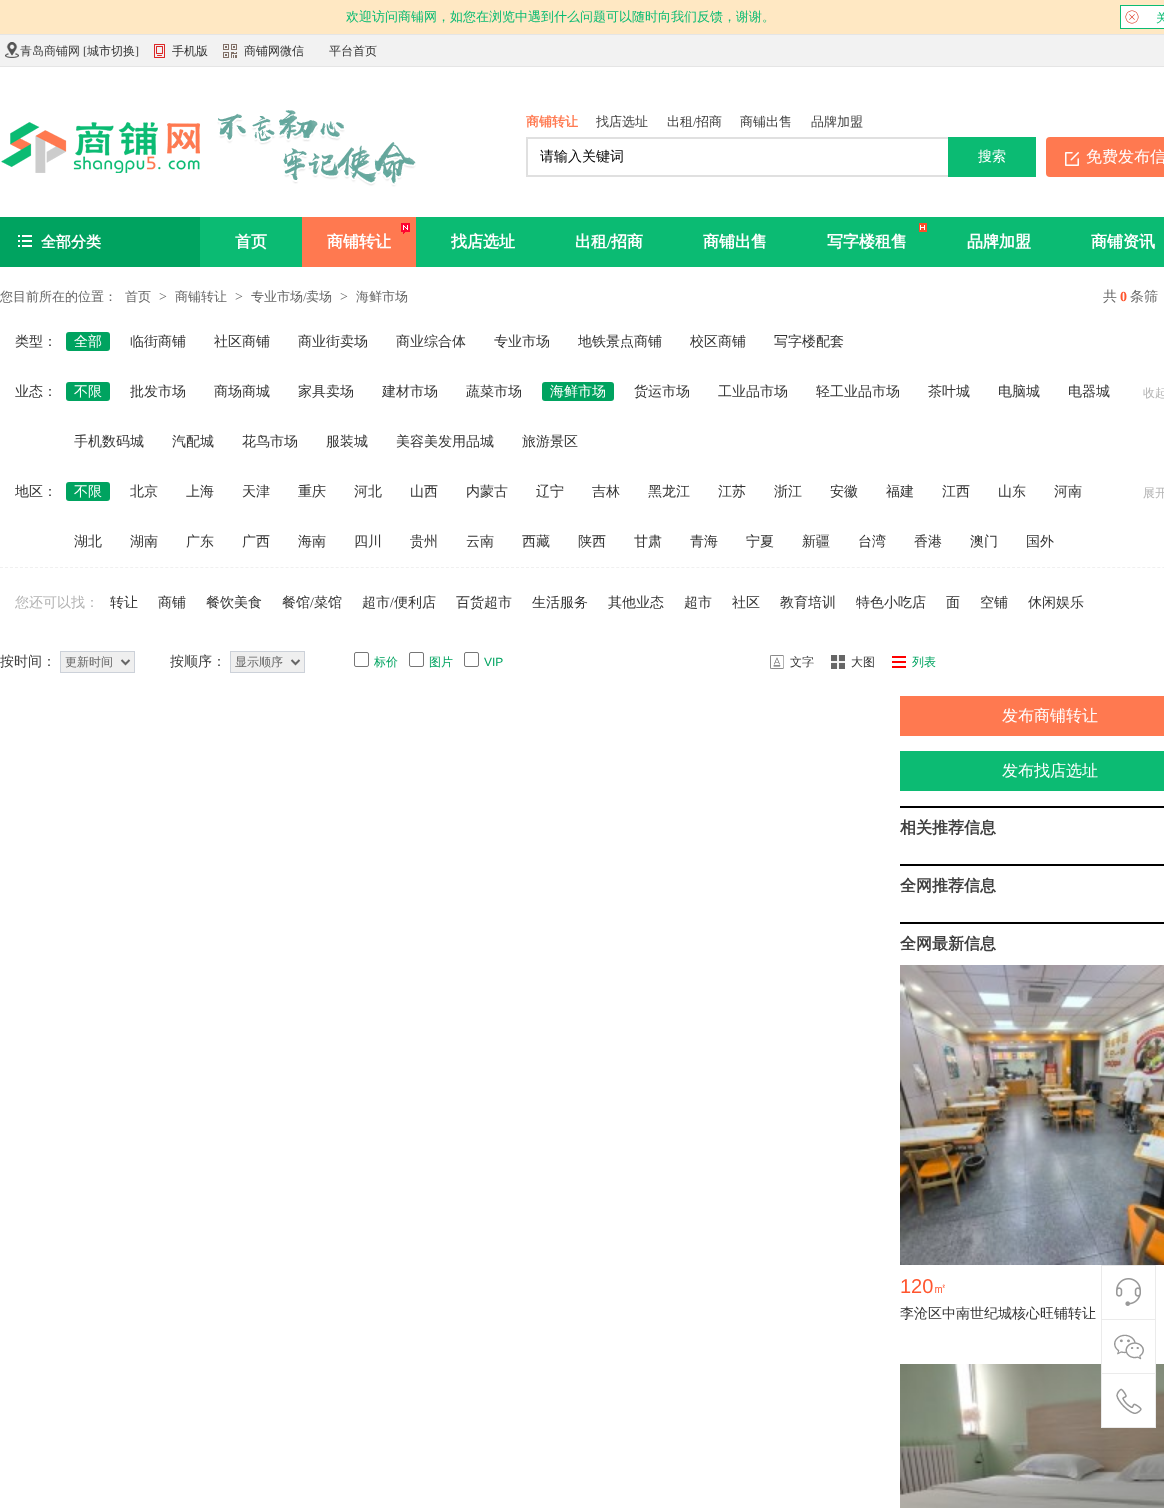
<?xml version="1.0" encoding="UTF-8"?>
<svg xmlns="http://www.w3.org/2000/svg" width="1164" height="1508">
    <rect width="100%" height="100%" fill="#FFFFFF"/>
    <rect x="0" y="0" width="1164" height="34" fill="#FFE8C3"/>
    <rect x="0" y="34" width="1164" height="1" fill="#E5E5E5"/>
    <text x="346" y="21" font-family="WenQuanYi Zen Hei" font-size="13" font-weight="500" fill="#0BBB73">欢迎访问商铺网，如您在浏览中遇到什么问题可以随时向我们反馈，谢谢。</text>
    <rect x="1120.5" y="5.5" width="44" height="23" fill="#FFFFFF" stroke="#0BBB73"/>
    <image x="1125" y="10" width="14" height="14" href="img_01.png"/>
    <text x="1156" y="22" font-family="WenQuanYi Zen Hei" font-size="12" font-weight="500" fill="#0BBB73">关</text>
    <rect x="0" y="35" width="1164" height="31" fill="#F2F2F2"/>
    <rect x="0" y="66" width="1164" height="1" fill="#E5E5E5"/>
    <image x="5" y="42" width="14" height="16" href="img_02.png"/>
    <text x="20" y="55" font-family="WenQuanYi Zen Hei" font-size="12" font-weight="500" fill="#404040">青岛商铺网</text>
    <text x="83" y="55" font-family="Liberation Serif" font-size="12" fill="#404040">[</text>
    <text x="87" y="55" font-family="WenQuanYi Zen Hei" font-size="12" font-weight="500" fill="#333333">城市切换</text>
    <text x="135" y="55" font-family="Liberation Serif" font-size="12" fill="#404040">]</text>
    <image x="154" y="44" width="11" height="14" href="img_03.png"/>
    <text x="172" y="55" font-family="WenQuanYi Zen Hei" font-size="12" font-weight="500" fill="#333333">手机版</text>
    <image x="223" y="44" width="14" height="14" href="img_04.png"/>
    <text x="244" y="55" font-family="WenQuanYi Zen Hei" font-size="12" font-weight="500" fill="#333333">商铺网微信</text>
    <text x="329" y="55" font-family="WenQuanYi Zen Hei" font-size="12" font-weight="500" fill="#333333">平台首页</text>
    <image x="1" y="122" width="199" height="51" href="img_05.png"/>
    <image x="217" y="110" width="199" height="77" href="img_06.png"/>
    <text x="526" y="126" font-family="WenQuanYi Zen Hei" font-size="13" font-weight="700" fill="#FF7950">商铺转让</text>
    <text x="596" y="126" font-family="WenQuanYi Zen Hei" font-size="13" font-weight="500" fill="#404040">找店选址</text>
    <text x="667" y="126" font-family="WenQuanYi Zen Hei" font-size="13" font-weight="500" fill="#404040">出租</text>
    <text x="693" y="126" font-family="Liberation Serif" font-size="13" fill="#404040">/</text>
    <text x="696" y="126" font-family="WenQuanYi Zen Hei" font-size="13" font-weight="500" fill="#404040">招商</text>
    <text x="740" y="126" font-family="WenQuanYi Zen Hei" font-size="13" font-weight="500" fill="#404040">商铺出售</text>
    <text x="811" y="126" font-family="WenQuanYi Zen Hei" font-size="13" font-weight="500" fill="#404040">品牌加盟</text>
    <rect x="526" y="137" width="422" height="40" fill="#E0E0E0"/>
    <rect x="528" y="139" width="420" height="36" fill="#FFFFFF"/>
    <text x="540" y="161" font-family="WenQuanYi Zen Hei" font-size="14" font-weight="500" fill="#000000">请输入关键词</text>
    <rect x="948" y="137" width="88" height="40" fill="#0BBB73"/>
    <text x="978" y="161" font-family="WenQuanYi Zen Hei" font-size="14" font-weight="500" fill="#FFFFFF">搜索</text>
    <rect x="1046" y="137" width="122" height="40" rx="4" fill="#FF7950"/>
    <image x="1065" y="152" width="14" height="14" href="img_07.png"/>
    <text x="1086" y="162" font-family="WenQuanYi Zen Hei" font-size="16" font-weight="500" fill="#FFFFFF">免费发布信</text>
    <rect x="200" y="217" width="964" height="50" fill="#0BBB73"/>
    <rect x="0" y="217" width="200" height="50" fill="#00A360"/>
    <image x="18" y="235" width="14" height="12" href="img_08.png"/>
    <text x="41" y="247" font-family="WenQuanYi Zen Hei" font-size="15" font-weight="700" fill="#FFFFFF">全部分类</text>
    <text x="235" y="247" font-family="WenQuanYi Zen Hei" font-size="16" font-weight="700" fill="#FFFFFF">首页</text>
    <rect x="302" y="217" width="114" height="50" fill="#FF7950"/>
    <image x="401" y="223" width="9" height="11" href="img_09.png"/>
    <text x="327" y="247" font-family="WenQuanYi Zen Hei" font-size="16" font-weight="700" fill="#FFFFFF">商铺转让</text>
    <text x="451" y="247" font-family="WenQuanYi Zen Hei" font-size="16" font-weight="700" fill="#FFFFFF">找店选址</text>
    <text x="575" y="247" font-family="WenQuanYi Zen Hei" font-size="16" font-weight="700" fill="#FFFFFF">出租</text>
    <text x="607" y="247" font-family="Liberation Serif" font-size="16" font-weight="700" fill="#FFFFFF">/</text>
    <text x="611" y="247" font-family="WenQuanYi Zen Hei" font-size="16" font-weight="700" fill="#FFFFFF">招商</text>
    <text x="703" y="247" font-family="WenQuanYi Zen Hei" font-size="16" font-weight="700" fill="#FFFFFF">商铺出售</text>
    <image x="919" y="223" width="8" height="9" href="img_10.png"/>
    <text x="827" y="247" font-family="WenQuanYi Zen Hei" font-size="16" font-weight="700" fill="#FFFFFF">写字楼租售</text>
    <text x="967" y="247" font-family="WenQuanYi Zen Hei" font-size="16" font-weight="700" fill="#FFFFFF">品牌加盟</text>
    <text x="1091" y="247" font-family="WenQuanYi Zen Hei" font-size="16" font-weight="700" fill="#FFFFFF">商铺资讯</text>
    <text x="0" y="301" font-family="WenQuanYi Zen Hei" font-size="13" font-weight="500" fill="#666666">您目前所在的位置：</text>
    <text x="125" y="301" font-family="WenQuanYi Zen Hei" font-size="13" font-weight="500" fill="#666666">首页</text>
    <text x="159" y="301" font-family="Liberation Serif" font-size="14" fill="#666666">&gt;</text>
    <text x="175" y="301" font-family="WenQuanYi Zen Hei" font-size="13" font-weight="500" fill="#666666">商铺转让</text>
    <text x="235" y="301" font-family="Liberation Serif" font-size="14" fill="#666666">&gt;</text>
    <text x="251" y="301" font-family="WenQuanYi Zen Hei" font-size="13" font-weight="500" fill="#666666">专业市场</text>
    <text x="303" y="301" font-family="Liberation Serif" font-size="13" fill="#666666">/</text>
    <text x="306" y="301" font-family="WenQuanYi Zen Hei" font-size="13" font-weight="500" fill="#666666">卖场</text>
    <text x="340" y="301" font-family="Liberation Serif" font-size="14" fill="#666666">&gt;</text>
    <text x="356" y="301" font-family="WenQuanYi Zen Hei" font-size="13" font-weight="500" fill="#666666">海鲜市场</text>
    <text x="1103" y="301" font-family="WenQuanYi Zen Hei" font-size="14" font-weight="500" fill="#666666">共</text>
    <text x="1120" y="301" font-family="Liberation Serif" font-size="14" font-weight="700" fill="#FF552E">0</text>
    <text x="1130" y="301" font-family="WenQuanYi Zen Hei" font-size="14" font-weight="500" fill="#666666">条筛</text>
    <text x="15" y="346" font-family="WenQuanYi Zen Hei" font-size="14" font-weight="500" fill="#333333">类型：</text>
    <rect x="66" y="332" width="44" height="19" rx="3" fill="#00A360"/>
    <text x="74" y="346" font-family="WenQuanYi Zen Hei" font-size="14" font-weight="500" fill="#FFFFFF">全部</text>
    <text x="130" y="346" font-family="WenQuanYi Zen Hei" font-size="14" font-weight="500" fill="#333333">临街商铺</text>
    <text x="214" y="346" font-family="WenQuanYi Zen Hei" font-size="14" font-weight="500" fill="#333333">社区商铺</text>
    <text x="298" y="346" font-family="WenQuanYi Zen Hei" font-size="14" font-weight="500" fill="#333333">商业街卖场</text>
    <text x="396" y="346" font-family="WenQuanYi Zen Hei" font-size="14" font-weight="500" fill="#333333">商业综合体</text>
    <text x="494" y="346" font-family="WenQuanYi Zen Hei" font-size="14" font-weight="500" fill="#333333">专业市场</text>
    <text x="578" y="346" font-family="WenQuanYi Zen Hei" font-size="14" font-weight="500" fill="#333333">地铁景点商铺</text>
    <text x="690" y="346" font-family="WenQuanYi Zen Hei" font-size="14" font-weight="500" fill="#333333">校区商铺</text>
    <text x="774" y="346" font-family="WenQuanYi Zen Hei" font-size="14" font-weight="500" fill="#333333">写字楼配套</text>
    <text x="15" y="396" font-family="WenQuanYi Zen Hei" font-size="14" font-weight="500" fill="#333333">业态：</text>
    <rect x="66" y="382" width="44" height="19" rx="3" fill="#00A360"/>
    <text x="74" y="396" font-family="WenQuanYi Zen Hei" font-size="14" font-weight="500" fill="#FFFFFF">不限</text>
    <text x="130" y="396" font-family="WenQuanYi Zen Hei" font-size="14" font-weight="500" fill="#333333">批发市场</text>
    <text x="214" y="396" font-family="WenQuanYi Zen Hei" font-size="14" font-weight="500" fill="#333333">商场商城</text>
    <text x="298" y="396" font-family="WenQuanYi Zen Hei" font-size="14" font-weight="500" fill="#333333">家具卖场</text>
    <text x="382" y="396" font-family="WenQuanYi Zen Hei" font-size="14" font-weight="500" fill="#333333">建材市场</text>
    <text x="466" y="396" font-family="WenQuanYi Zen Hei" font-size="14" font-weight="500" fill="#333333">蔬菜市场</text>
    <rect x="542" y="382" width="72" height="19" rx="3" fill="#00A360"/>
    <text x="550" y="396" font-family="WenQuanYi Zen Hei" font-size="14" font-weight="500" fill="#FFFFFF">海鲜市场</text>
    <text x="634" y="396" font-family="WenQuanYi Zen Hei" font-size="14" font-weight="500" fill="#333333">货运市场</text>
    <text x="718" y="396" font-family="WenQuanYi Zen Hei" font-size="14" font-weight="500" fill="#333333">工业品市场</text>
    <text x="816" y="396" font-family="WenQuanYi Zen Hei" font-size="14" font-weight="500" fill="#333333">轻工业品市场</text>
    <text x="928" y="396" font-family="WenQuanYi Zen Hei" font-size="14" font-weight="500" fill="#333333">茶叶城</text>
    <text x="998" y="396" font-family="WenQuanYi Zen Hei" font-size="14" font-weight="500" fill="#333333">电脑城</text>
    <text x="1068" y="396" font-family="WenQuanYi Zen Hei" font-size="14" font-weight="500" fill="#333333">电器城</text>
    <text x="74" y="446" font-family="WenQuanYi Zen Hei" font-size="14" font-weight="500" fill="#333333">手机数码城</text>
    <text x="172" y="446" font-family="WenQuanYi Zen Hei" font-size="14" font-weight="500" fill="#333333">汽配城</text>
    <text x="242" y="446" font-family="WenQuanYi Zen Hei" font-size="14" font-weight="500" fill="#333333">花鸟市场</text>
    <text x="326" y="446" font-family="WenQuanYi Zen Hei" font-size="14" font-weight="500" fill="#333333">服装城</text>
    <text x="396" y="446" font-family="WenQuanYi Zen Hei" font-size="14" font-weight="500" fill="#333333">美容美发用品城</text>
    <text x="522" y="446" font-family="WenQuanYi Zen Hei" font-size="14" font-weight="500" fill="#333333">旅游景区</text>
    <text x="1143" y="397" font-family="WenQuanYi Zen Hei" font-size="12" font-weight="500" fill="#B2B2B2">收起</text>
    <text x="15" y="496" font-family="WenQuanYi Zen Hei" font-size="14" font-weight="500" fill="#333333">地区：</text>
    <rect x="66" y="482" width="44" height="19" rx="3" fill="#00A360"/>
    <text x="74" y="496" font-family="WenQuanYi Zen Hei" font-size="14" font-weight="500" fill="#FFFFFF">不限</text>
    <text x="130" y="496" font-family="WenQuanYi Zen Hei" font-size="14" font-weight="500" fill="#333333">北京</text>
    <text x="186" y="496" font-family="WenQuanYi Zen Hei" font-size="14" font-weight="500" fill="#333333">上海</text>
    <text x="242" y="496" font-family="WenQuanYi Zen Hei" font-size="14" font-weight="500" fill="#333333">天津</text>
    <text x="298" y="496" font-family="WenQuanYi Zen Hei" font-size="14" font-weight="500" fill="#333333">重庆</text>
    <text x="354" y="496" font-family="WenQuanYi Zen Hei" font-size="14" font-weight="500" fill="#333333">河北</text>
    <text x="410" y="496" font-family="WenQuanYi Zen Hei" font-size="14" font-weight="500" fill="#333333">山西</text>
    <text x="466" y="496" font-family="WenQuanYi Zen Hei" font-size="14" font-weight="500" fill="#333333">内蒙古</text>
    <text x="536" y="496" font-family="WenQuanYi Zen Hei" font-size="14" font-weight="500" fill="#333333">辽宁</text>
    <text x="592" y="496" font-family="WenQuanYi Zen Hei" font-size="14" font-weight="500" fill="#333333">吉林</text>
    <text x="648" y="496" font-family="WenQuanYi Zen Hei" font-size="14" font-weight="500" fill="#333333">黑龙江</text>
    <text x="718" y="496" font-family="WenQuanYi Zen Hei" font-size="14" font-weight="500" fill="#333333">江苏</text>
    <text x="774" y="496" font-family="WenQuanYi Zen Hei" font-size="14" font-weight="500" fill="#333333">浙江</text>
    <text x="830" y="496" font-family="WenQuanYi Zen Hei" font-size="14" font-weight="500" fill="#333333">安徽</text>
    <text x="886" y="496" font-family="WenQuanYi Zen Hei" font-size="14" font-weight="500" fill="#333333">福建</text>
    <text x="942" y="496" font-family="WenQuanYi Zen Hei" font-size="14" font-weight="500" fill="#333333">江西</text>
    <text x="998" y="496" font-family="WenQuanYi Zen Hei" font-size="14" font-weight="500" fill="#333333">山东</text>
    <text x="1054" y="496" font-family="WenQuanYi Zen Hei" font-size="14" font-weight="500" fill="#333333">河南</text>
    <text x="74" y="546" font-family="WenQuanYi Zen Hei" font-size="14" font-weight="500" fill="#333333">湖北</text>
    <text x="130" y="546" font-family="WenQuanYi Zen Hei" font-size="14" font-weight="500" fill="#333333">湖南</text>
    <text x="186" y="546" font-family="WenQuanYi Zen Hei" font-size="14" font-weight="500" fill="#333333">广东</text>
    <text x="242" y="546" font-family="WenQuanYi Zen Hei" font-size="14" font-weight="500" fill="#333333">广西</text>
    <text x="298" y="546" font-family="WenQuanYi Zen Hei" font-size="14" font-weight="500" fill="#333333">海南</text>
    <text x="354" y="546" font-family="WenQuanYi Zen Hei" font-size="14" font-weight="500" fill="#333333">四川</text>
    <text x="410" y="546" font-family="WenQuanYi Zen Hei" font-size="14" font-weight="500" fill="#333333">贵州</text>
    <text x="466" y="546" font-family="WenQuanYi Zen Hei" font-size="14" font-weight="500" fill="#333333">云南</text>
    <text x="522" y="546" font-family="WenQuanYi Zen Hei" font-size="14" font-weight="500" fill="#333333">西藏</text>
    <text x="578" y="546" font-family="WenQuanYi Zen Hei" font-size="14" font-weight="500" fill="#333333">陕西</text>
    <text x="634" y="546" font-family="WenQuanYi Zen Hei" font-size="14" font-weight="500" fill="#333333">甘肃</text>
    <text x="690" y="546" font-family="WenQuanYi Zen Hei" font-size="14" font-weight="500" fill="#333333">青海</text>
    <text x="746" y="546" font-family="WenQuanYi Zen Hei" font-size="14" font-weight="500" fill="#333333">宁夏</text>
    <text x="802" y="546" font-family="WenQuanYi Zen Hei" font-size="14" font-weight="500" fill="#333333">新疆</text>
    <text x="858" y="546" font-family="WenQuanYi Zen Hei" font-size="14" font-weight="500" fill="#333333">台湾</text>
    <text x="914" y="546" font-family="WenQuanYi Zen Hei" font-size="14" font-weight="500" fill="#333333">香港</text>
    <text x="970" y="546" font-family="WenQuanYi Zen Hei" font-size="14" font-weight="500" fill="#333333">澳门</text>
    <text x="1026" y="546" font-family="WenQuanYi Zen Hei" font-size="14" font-weight="500" fill="#333333">国外</text>
    <text x="1143" y="497" font-family="WenQuanYi Zen Hei" font-size="12" font-weight="500" fill="#B2B2B2">展开</text>
    <path d="M 0 567.5 H 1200" fill="none" stroke="#F0F0F0" stroke-dasharray="3 2.01"/>
    <text x="15" y="607" font-family="WenQuanYi Zen Hei" font-size="14" font-weight="500" fill="#B2B2B2">您还可以找：</text>
    <text x="110" y="607" font-family="WenQuanYi Zen Hei" font-size="14" font-weight="500" fill="#333333">转让</text>
    <text x="158" y="607" font-family="WenQuanYi Zen Hei" font-size="14" font-weight="500" fill="#333333">商铺</text>
    <text x="206" y="607" font-family="WenQuanYi Zen Hei" font-size="14" font-weight="500" fill="#333333">餐饮美食</text>
    <text x="282" y="607" font-family="WenQuanYi Zen Hei" font-size="14" font-weight="500" fill="#333333">餐馆</text>
    <text x="310" y="607" font-family="Liberation Serif" font-size="14" fill="#333333">/</text>
    <text x="314" y="607" font-family="WenQuanYi Zen Hei" font-size="14" font-weight="500" fill="#333333">菜馆</text>
    <text x="362" y="607" font-family="WenQuanYi Zen Hei" font-size="14" font-weight="500" fill="#333333">超市</text>
    <text x="390" y="607" font-family="Liberation Serif" font-size="14" fill="#333333">/</text>
    <text x="394" y="607" font-family="WenQuanYi Zen Hei" font-size="14" font-weight="500" fill="#333333">便利店</text>
    <text x="456" y="607" font-family="WenQuanYi Zen Hei" font-size="14" font-weight="500" fill="#333333">百货超市</text>
    <text x="532" y="607" font-family="WenQuanYi Zen Hei" font-size="14" font-weight="500" fill="#333333">生活服务</text>
    <text x="608" y="607" font-family="WenQuanYi Zen Hei" font-size="14" font-weight="500" fill="#333333">其他业态</text>
    <text x="684" y="607" font-family="WenQuanYi Zen Hei" font-size="14" font-weight="500" fill="#333333">超市</text>
    <text x="732" y="607" font-family="WenQuanYi Zen Hei" font-size="14" font-weight="500" fill="#333333">社区</text>
    <text x="780" y="607" font-family="WenQuanYi Zen Hei" font-size="14" font-weight="500" fill="#333333">教育培训</text>
    <text x="856" y="607" font-family="WenQuanYi Zen Hei" font-size="14" font-weight="500" fill="#333333">特色小吃店</text>
    <text x="946" y="607" font-family="WenQuanYi Zen Hei" font-size="14" font-weight="500" fill="#333333">面</text>
    <text x="980" y="607" font-family="WenQuanYi Zen Hei" font-size="14" font-weight="500" fill="#333333">空铺</text>
    <text x="1028" y="607" font-family="WenQuanYi Zen Hei" font-size="14" font-weight="500" fill="#333333">休闲娱乐</text>
    <text x="0" y="666" font-family="WenQuanYi Zen Hei" font-size="14" font-weight="500" fill="#404040">按时间：</text>
    <rect x="60.5" y="651.5" width="74" height="21" fill="#EFEFEF" stroke="#CCD1D9"/>
    <path d="M 121.5 660 L 125.5 664 L 129.5 660" fill="none" stroke="#666666" stroke-width="2"/>
    <text x="65" y="666" font-family="WenQuanYi Zen Hei" font-size="12" font-weight="500" fill="#666666">更新时间</text>
    <text x="170" y="666" font-family="WenQuanYi Zen Hei" font-size="14" font-weight="500" fill="#404040">按顺序：</text>
    <rect x="230.5" y="651.5" width="74" height="21" fill="#EFEFEF" stroke="#CCD1D9"/>
    <path d="M 291.5 660 L 295.5 664 L 299.5 660" fill="none" stroke="#666666" stroke-width="2"/>
    <text x="235" y="666" font-family="WenQuanYi Zen Hei" font-size="12" font-weight="500" fill="#666666">显示顺序</text>
    <rect x="354.5" y="652.5" width="14" height="14" rx="1.5" fill="none" stroke="#767676"/>
    <text x="374" y="666" font-family="WenQuanYi Zen Hei" font-size="12" font-weight="500" fill="#00A360">标价</text>
    <rect x="409.5" y="652.5" width="14" height="14" rx="1.5" fill="none" stroke="#767676"/>
    <text x="429" y="666" font-family="WenQuanYi Zen Hei" font-size="12" font-weight="500" fill="#00A360">图片</text>
    <rect x="464.5" y="652.5" width="14" height="14" rx="1.5" fill="none" stroke="#767676"/>
    <text x="484" y="666" font-family="Liberation Sans" font-size="12" fill="#00A360">VIP</text>
    <image x="770" y="655" width="14" height="14" href="img_11.png"/>
    <text x="790" y="666" font-family="WenQuanYi Zen Hei" font-size="12" font-weight="500" fill="#333333">文字</text>
    <image x="831" y="655" width="14" height="14" href="img_12.png"/>
    <text x="851" y="666" font-family="WenQuanYi Zen Hei" font-size="12" font-weight="500" fill="#333333">大图</text>
    <image x="892" y="656" width="14" height="12" href="img_13.png"/>
    <text x="912" y="666" font-family="WenQuanYi Zen Hei" font-size="12" font-weight="500" fill="#00A360">列表</text>
    <rect x="900" y="696" width="264" height="40" fill="#FF7950"/>
    <text x="1002" y="721" font-family="WenQuanYi Zen Hei" font-size="16" font-weight="500" fill="#FFFFFF">发布商铺转让</text>
    <rect x="900" y="751" width="264" height="40" fill="#0CBB73"/>
    <text x="1002" y="776" font-family="WenQuanYi Zen Hei" font-size="16" font-weight="500" fill="#FFFFFF">发布找店选址</text>
    <rect x="900" y="806" width="264" height="2" fill="#000000"/>
    <text x="900" y="833" font-family="WenQuanYi Zen Hei" font-size="16" font-weight="700" fill="#404040">相关推荐信息</text>
    <rect x="900" y="864" width="264" height="2" fill="#000000"/>
    <text x="900" y="891" font-family="WenQuanYi Zen Hei" font-size="16" font-weight="700" fill="#404040">全网推荐信息</text>
    <rect x="900" y="922" width="264" height="2" fill="#000000"/>
    <text x="900" y="949" font-family="WenQuanYi Zen Hei" font-size="16" font-weight="700" fill="#404040">全网最新信息</text>
    <image x="900" y="965" width="264" height="300" href="img_14.png"/>
    <text x="900" y="1293" font-family="Liberation Sans" font-size="20" fill="#FF552E">120</text>
    <text x="933" y="1293" font-family="WenQuanYi Zen Hei" font-size="14" font-weight="500" fill="#FF552E">㎡</text>
    <text x="900" y="1318" font-family="WenQuanYi Zen Hei" font-size="14" font-weight="500" fill="#333333">李沧区中南世纪城核心旺铺转让</text>
    <image x="900" y="1364" width="264" height="144" href="img_15.png"/>
    <rect x="1101.5" y="1265.5" width="54" height="54" fill="none" stroke="#EBEBEB"/>
    <image x="1116" y="1278" width="25" height="28" href="img_16.png"/>
    <rect x="1101.5" y="1319.5" width="54" height="54" fill="none" stroke="#EBEBEB"/>
    <rect x="1102" y="1364" width="53" height="9" fill="#FFFFFF"/>
    <image x="1114" y="1334" width="30" height="26" href="img_17.png"/>
    <rect x="1101.5" y="1373.5" width="54" height="54" fill="none" stroke="#EBEBEB"/>
    <rect x="1102" y="1374" width="53" height="53" fill="#FFFFFF"/>
    <image x="1116" y="1388" width="26" height="26" href="img_18.png"/>
</svg>
